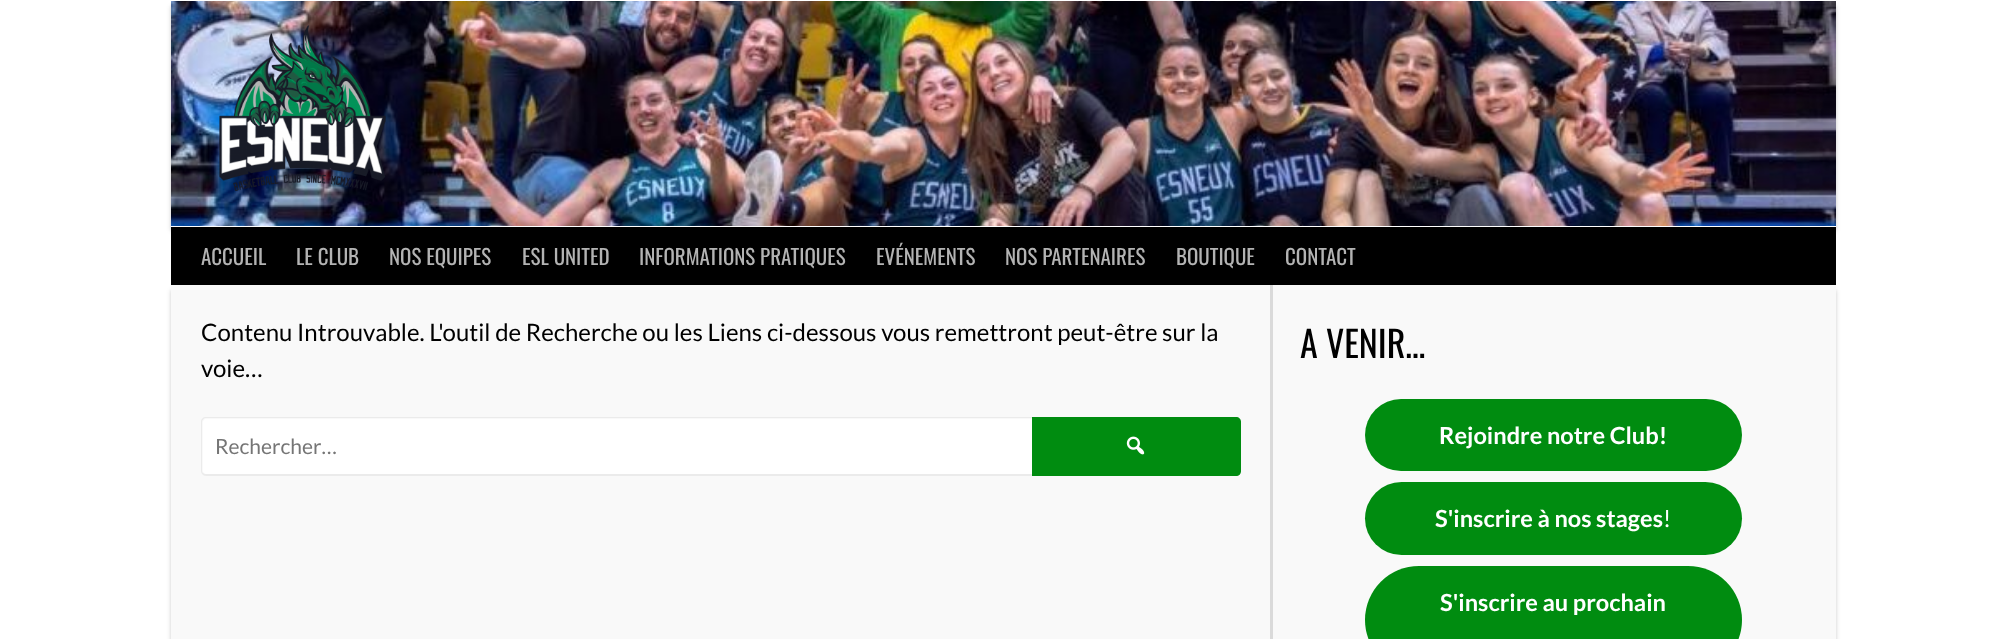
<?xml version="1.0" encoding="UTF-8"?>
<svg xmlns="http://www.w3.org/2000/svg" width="2006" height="639">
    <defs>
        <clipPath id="clip1"><path d="M 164 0 H 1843 V 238 H 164 Z M 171 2 H 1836 V 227 H 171 Z" clip-rule="evenodd"/></clipPath>
        <filter id="blur1" x="-50%" y="-200%" width="200%" height="500%"><feGaussianBlur stdDeviation="2"/></filter>
    </defs>
    <rect width="100%" height="100%" fill="#FFFFFF"/>
    <image x="171" y="1" width="1665" height="225" href="img_01.png"/>
    <g clip-path="url(#clip1)">
        <rect x="171" y="6" width="1665" height="225" fill="#000000" fill-opacity="0.2" filter="url(#blur1)"/>
    </g>
    <image x="219" y="25" width="167" height="166" href="img_02.png"/>
    <rect x="171" y="290" width="1665" height="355" fill="#000000" fill-opacity="0.2" filter="url(#blur1)"/>
    <rect x="171" y="227" width="1665" height="58" fill="#000000"/>
    <text x="201" y="265" font-family="Oswald" font-size="21" fill="#B3B3B3">ACCUEIL</text>
    <text x="296" y="265" font-family="Oswald" font-size="21" fill="#B3B3B3">LE CLUB</text>
    <text x="389" y="265" font-family="Oswald" font-size="21" fill="#B3B3B3">NOS EQUIPES</text>
    <text x="522" y="265" font-family="Oswald" font-size="21" fill="#B3B3B3">ESL UNITED</text>
    <text x="639" y="265" font-family="Oswald" font-size="21" fill="#B3B3B3">INFORMATIONS PRATIQUES</text>
    <text x="876" y="265" font-family="Oswald" font-size="21" fill="#B3B3B3">EVÉNEMENTS</text>
    <text x="1005" y="265" font-family="Oswald" font-size="21" fill="#B3B3B3">NOS PARTENAIRES</text>
    <text x="1176" y="265" font-family="Oswald" font-size="21" fill="#B3B3B3">BOUTIQUE</text>
    <text x="1285" y="265" font-family="Oswald" font-size="21" fill="#B3B3B3">CONTACT</text>
    <rect x="171" y="285" width="1665" height="354" fill="#F9F9F9"/>
    <rect x="1270" y="285" width="3" height="354" fill="#DADADA"/>
    <text font-family="Lato" font-size="24" fill="#000000">
        <tspan x="201" y="341">Contenu Introuvable. L'outil de Recherche ou les Liens ci-dessous vous remettront peut-être sur la</tspan>
        <tspan x="201" y="377">voie…</tspan>
    </text>
    <path d="M 206 419 H 1032 V 474 H 206 C 204.5 474 203 472.5 203 471 V 422 C 203 420.5 204.5 419 206 419 Z" fill="#FFFFFF"/>
    <path d="M 206 417 H 1032 V 476 H 206 C 203 476 201 473 201 471 V 422 C 201 419 203 417 206 417 Z M 206 418 H 1032 V 474 H 206 C 204 474 202 473 202 471 V 422 C 202 420 204 418 206 418 Z" fill="#EBEBEB" fill-rule="evenodd"/>
    <text x="215" y="454" font-family="Lato" font-size="21" fill="#757575">Rechercher…</text>
    <path d="M 1032 417 H 1236 C 1239 417 1241 419 1241 422 V 471 C 1241 474 1239 476 1236 476 H 1032 Z" fill="#008C10"/>
    <image x="1126" y="436" width="19" height="19" href="img_03.png"/>
    <text x="1300" y="358" font-family="Oswald" font-size="36" fill="#000000">A VENIR…</text>
    <rect x="1365" y="399" width="377" height="72" rx="36" fill="#008C10"/>
    <text x="1439" y="444" font-family="Lato" font-size="23.6" font-weight="700" fill="#FFFFFF">Rejoindre notre Club!</text>
    <rect x="1365" y="482" width="377" height="73" rx="36.5" fill="#008C10"/>
    <text x="1435" y="527" font-family="Lato" font-size="23.6" font-weight="700" fill="#FFFFFF">S'inscrire à nos stages</text>
    <text x="1663" y="527" font-family="Lato" font-size="23.6" fill="#FFFFFF">!</text>
    <rect x="1365" y="566" width="377" height="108" rx="54" fill="#008C10"/>
    <text x="1440" y="611" font-family="Lato" font-size="23.6" font-weight="700" fill="#FFFFFF">S'inscrire au prochain</text>
</svg>
